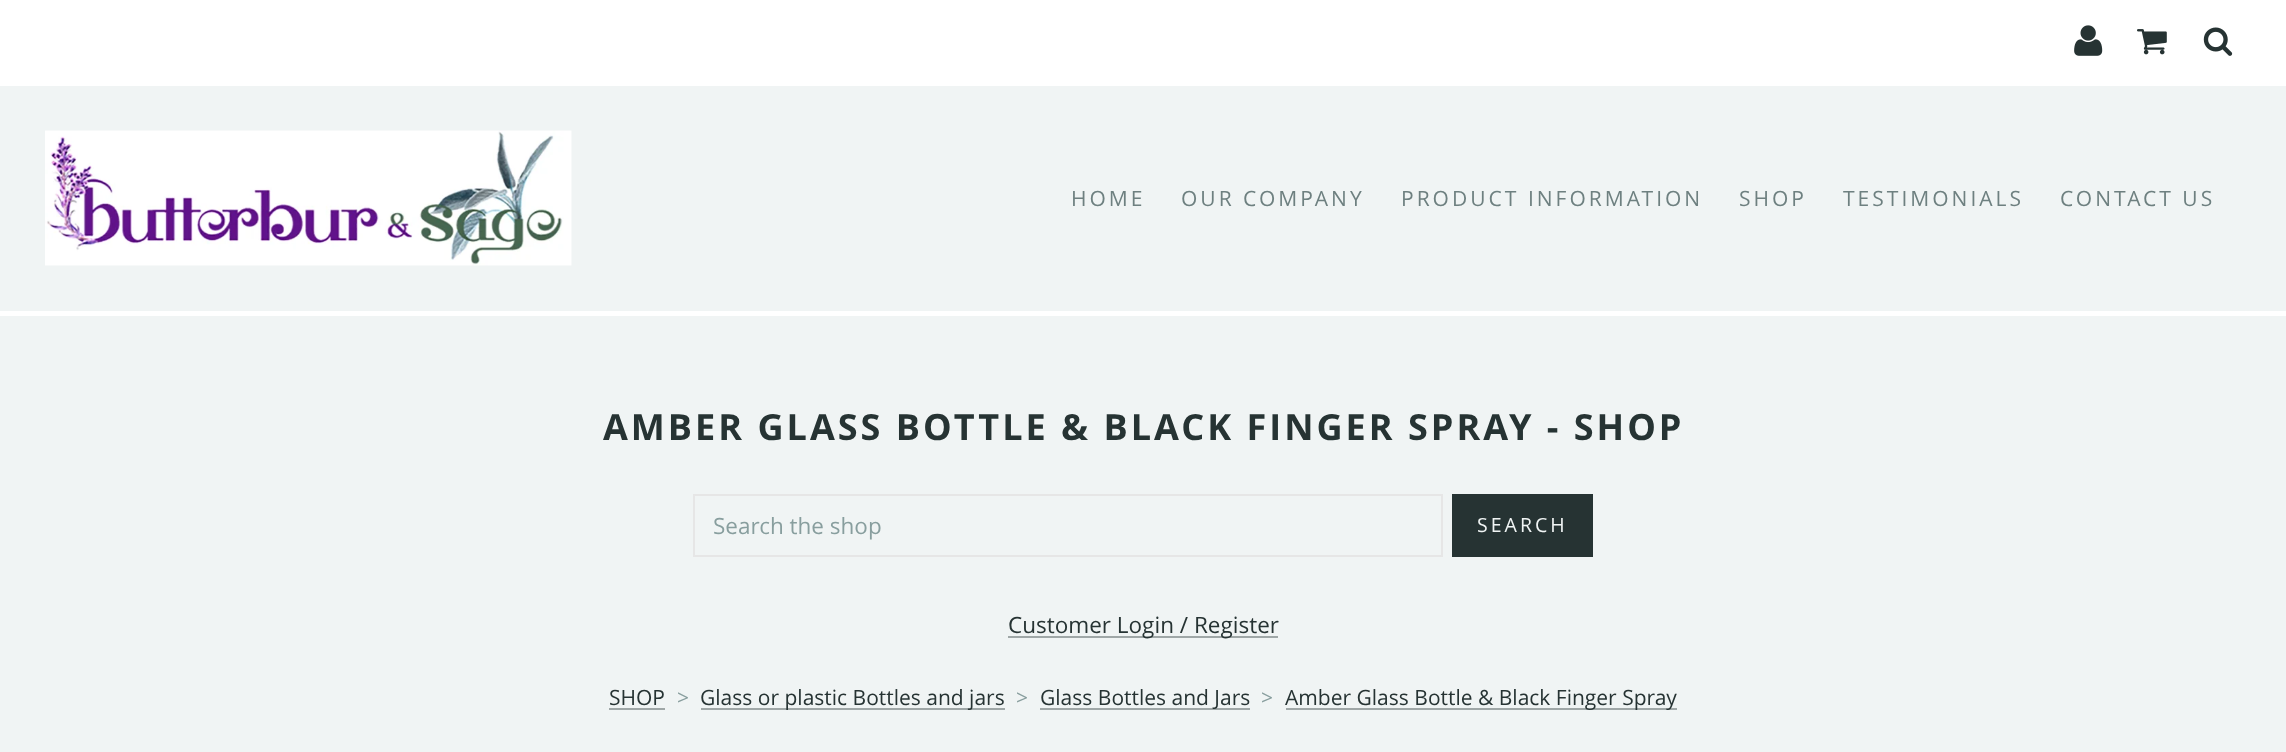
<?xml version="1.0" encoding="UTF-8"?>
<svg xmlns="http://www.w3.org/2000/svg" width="2286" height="752">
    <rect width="100%" height="100%" fill="#F0F4F4"/>
    <rect x="0" y="0" width="2286" height="86" fill="#FFFFFF"/>
    <image x="2074" y="25" width="29" height="31" href="img_01.png"/>
    <image x="2137" y="29" width="30" height="26" href="img_02.png"/>
    <image x="2203" y="27" width="30" height="29" href="img_03.png"/>
    <rect x="0" y="311" width="2286" height="5" fill="#FFFFFF"/>
    <image x="45" y="130" width="527" height="136" href="img_04.png"/>
    <text x="1071" y="206" font-family="Open Sans" font-size="21" letter-spacing="3" fill="#6E8080">HOME</text>
    <text x="1181" y="206" font-family="Open Sans" font-size="21" letter-spacing="3" fill="#6E8080">OUR COMPANY</text>
    <text x="1401" y="206" font-family="Open Sans" font-size="21" letter-spacing="3" fill="#6E8080">PRODUCT INFORMATION</text>
    <text x="1739" y="206" font-family="Open Sans" font-size="21" letter-spacing="3" fill="#6E8080">SHOP</text>
    <text x="1843" y="206" font-family="Open Sans" font-size="21" letter-spacing="3" fill="#6E8080">TESTIMONIALS</text>
    <text x="2060" y="206" font-family="Open Sans" font-size="21" letter-spacing="3" fill="#6E8080">CONTACT US</text>
    <text x="603" y="440" font-family="Open Sans" font-size="36.05" font-weight="700" letter-spacing="3" fill="#263333">AMBER GLASS BOTTLE &amp; BLACK FINGER SPRAY - SHOP</text>
    <rect x="694" y="495" width="748" height="61" fill="none" stroke="#E6E6E6" stroke-width="2"/>
    <text x="713" y="534" font-family="Open Sans" font-size="22.5" fill="#889E9E">Search the shop</text>
    <rect x="1452" y="494" width="141" height="63" fill="#263333"/>
    <text x="1477" y="532" font-family="Open Sans" font-size="19.5" letter-spacing="3" fill="#F0F4F4">SEARCH</text>
    <rect x="1008" y="636" width="270" height="2" fill="#9FA7A7"/>
    <text x="1008" y="633" font-family="Open Sans" font-size="22.5" fill="#263333">Customer Login / Register</text>
    <text x="609" y="705" font-family="Open Sans" font-size="21" fill="#263333">SHOP</text>
    <rect x="609" y="708" width="56" height="2" fill="#9FA7A7"/>
    <text x="677" y="705" font-family="Open Sans" font-size="21" fill="#889E9E">&gt;</text>
    <rect x="701" y="708" width="304" height="2" fill="#9FA7A7"/>
    <text x="700" y="705" font-family="Open Sans" font-size="21" fill="#263333">Glass or plastic Bottles and jars</text>
    <text x="1016" y="705" font-family="Open Sans" font-size="21" fill="#889E9E">&gt;</text>
    <rect x="1040" y="708" width="210" height="2" fill="#9FA7A7"/>
    <text x="1040" y="705" font-family="Open Sans" font-size="21" fill="#263333">Glass Bottles and Jars</text>
    <text x="1261" y="705" font-family="Open Sans" font-size="21" fill="#889E9E">&gt;</text>
    <rect x="1286" y="708" width="391" height="2" fill="#9FA7A7"/>
    <text x="1285" y="705" font-family="Open Sans" font-size="21" fill="#263333">Amber Glass Bottle &amp; Black Finger Spray</text>
</svg>
